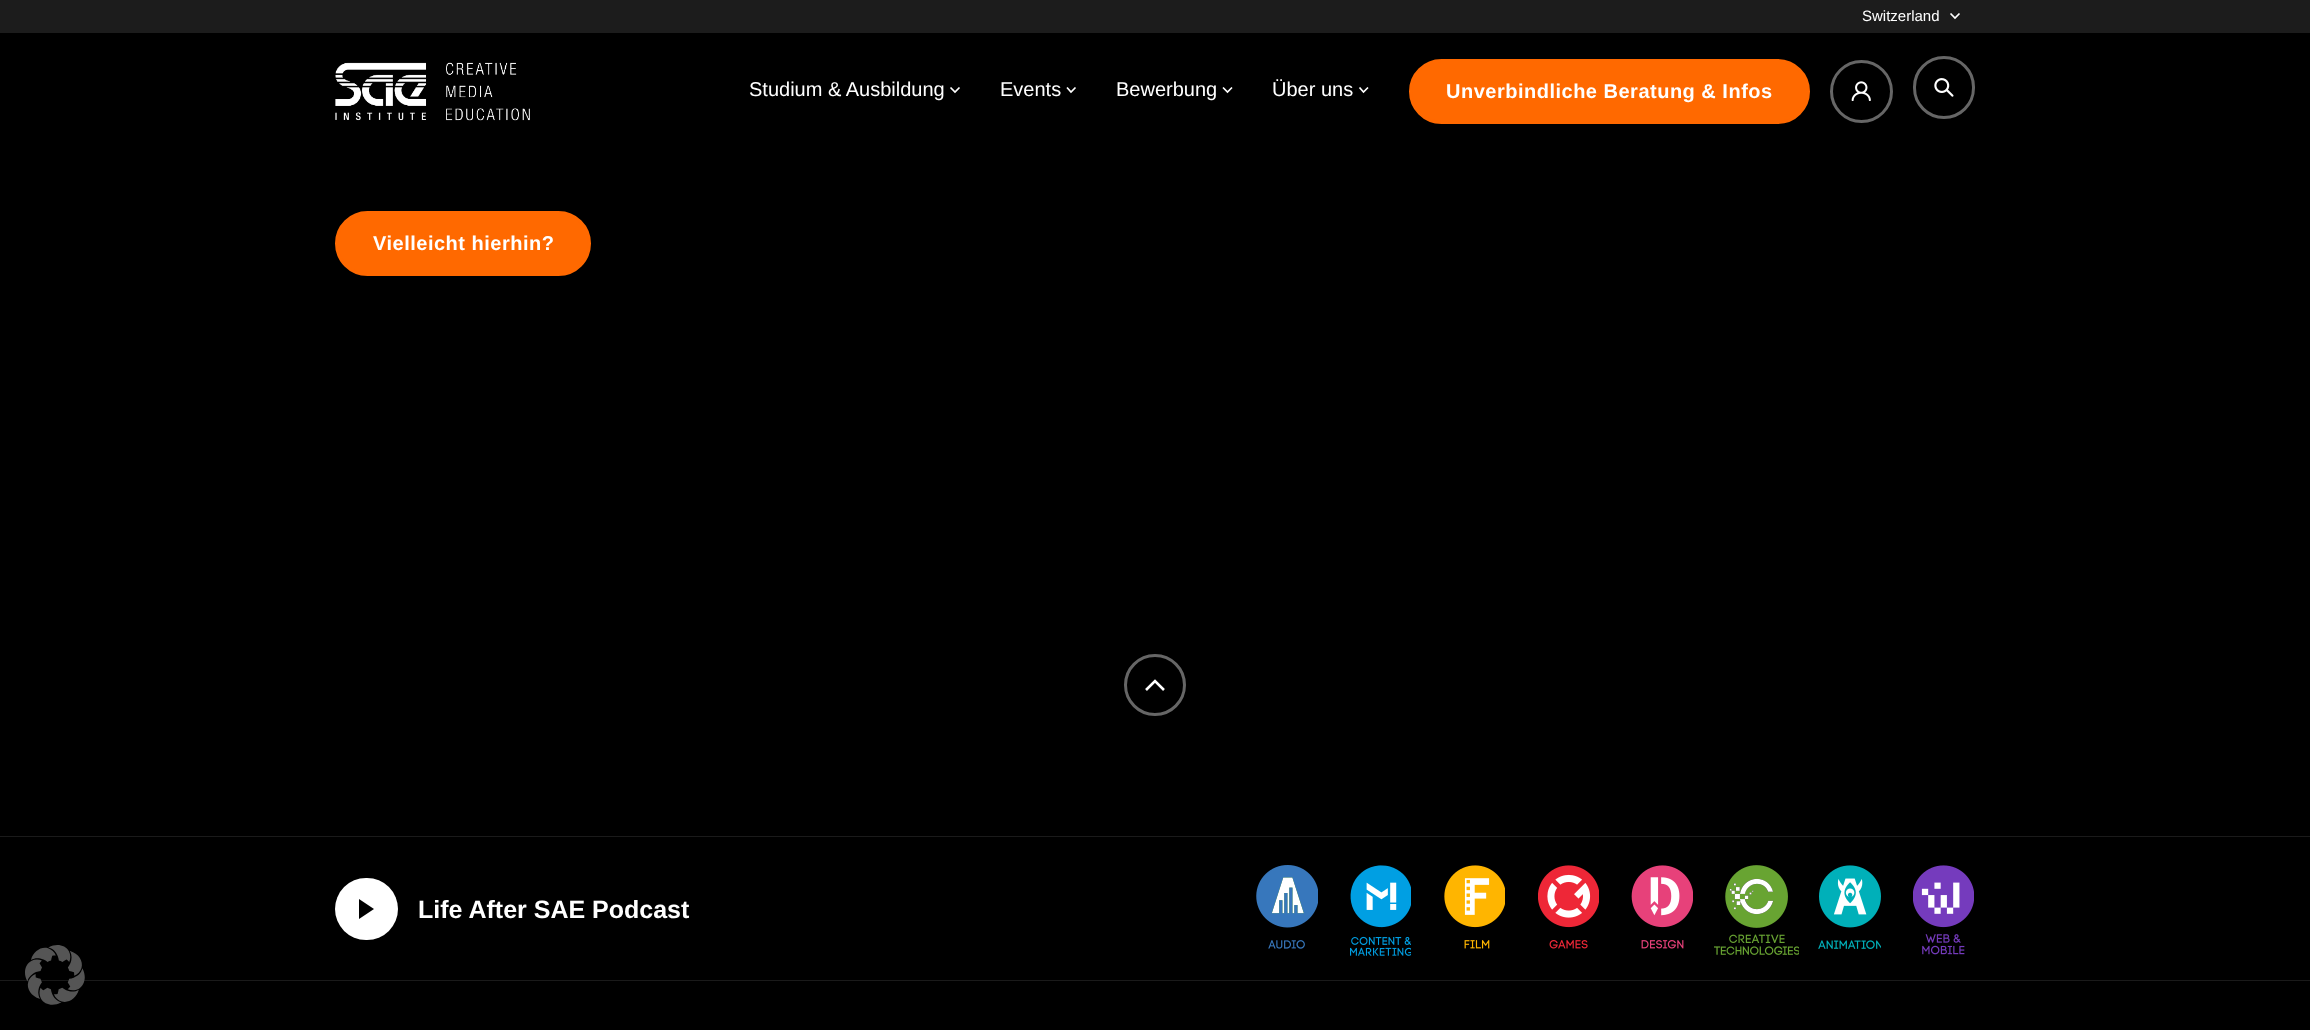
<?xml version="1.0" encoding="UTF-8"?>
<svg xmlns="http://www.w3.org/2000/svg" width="2310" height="1030">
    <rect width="100%" height="100%" fill="#000000"/>
    <rect x="0" y="0" width="2310" height="33" fill="#1C1C1C"/>
    <text x="1862" y="21" font-family="Liberation Sans" font-size="15" fill="#FFFFFF">Switzerland</text>
    <path d="M 1950.5 13.5 L 1955 18 L 1959.5 13.5" fill="none" stroke="#FFFFFF" stroke-width="1.7"/>
    <image x="335" y="62" width="195" height="59" href="img_01.png"/>
    <text x="749" y="96" font-family="Liberation Sans" font-size="20" fill="#FFFFFF">Studium &amp; Ausbildung</text>
    <path d="M 950.5 87.5 L 955 92 L 959.5 87.5" fill="none" stroke="#FFFFFF" stroke-width="1.7"/>
    <text x="1000" y="96" font-family="Liberation Sans" font-size="20" fill="#FFFFFF">Events</text>
    <path d="M 1067 87.5 L 1071 92 L 1075.5 87.5" fill="none" stroke="#FFFFFF" stroke-width="1.7"/>
    <text x="1116" y="96" font-family="Liberation Sans" font-size="20" fill="#FFFFFF">Bewerbung</text>
    <path d="M 1223 87.5 L 1227.5 92 L 1232 87.5" fill="none" stroke="#FFFFFF" stroke-width="1.7"/>
    <text x="1272" y="96" font-family="Liberation Sans" font-size="20" fill="#FFFFFF">Über uns</text>
    <path d="M 1359.5 87.5 L 1363.5 92 L 1368 87.5" fill="none" stroke="#FFFFFF" stroke-width="1.7"/>
    <rect x="1410.5" y="60.5" width="398" height="62" rx="31" fill="#FF6900" stroke="#FF6900" stroke-width="3"/>
    <text x="1446" y="98" font-family="Liberation Sans" font-size="20" font-weight="700" letter-spacing="0.5" fill="#FFFFFF">Unverbindliche Beratung &amp; Infos</text>
    <circle cx="1861.5" cy="91.5" r="30" fill="none" stroke="#666666" stroke-width="3"/>
    <image x="1851" y="81" width="20" height="20" href="img_02.png"/>
    <rect x="1914.5" y="57.5" width="59" height="60" rx="29.5" fill="none" stroke="#666666" stroke-width="3"/>
    <image x="1934" y="78" width="20" height="19" href="img_03.png"/>
    <rect x="336.5" y="212.5" width="253" height="62" rx="31" fill="#FF6900" stroke="#FF6900" stroke-width="3"/>
    <text x="373" y="250" font-family="Liberation Sans" font-size="20" font-weight="700" letter-spacing="0.5" fill="#FFFFFF">Vielleicht hierhin?</text>
    <circle cx="1155" cy="685" r="29.5" fill="none" stroke="#666666" stroke-width="3"/>
    <path d="M 1164 690 L 1155 681 L 1146 690" fill="none" stroke="#FFFFFF" stroke-width="2.6"/>
    <rect x="0" y="836" width="2310" height="1" fill="#1A1A1A"/>
    <rect x="335" y="878" width="63" height="62" rx="31" fill="#FFFFFF"/>
    <path d="M 374 909 L 359 919 V 899 Z" fill="#000000"/>
    <text x="418" y="918" font-family="Liberation Sans" font-size="25" font-weight="700" fill="#FFFFFF">Life After SAE Podcast</text>
    <image x="1256" y="865" width="62" height="84" href="img_04.png"/>
    <image x="1350" y="865" width="61" height="91" href="img_05.png"/>
    <image x="1444" y="865" width="61" height="84" href="img_06.png"/>
    <image x="1538" y="865" width="61" height="84" href="img_07.png"/>
    <image x="1631" y="865" width="62" height="84" href="img_08.png"/>
    <image x="1714" y="865" width="85" height="90" href="img_09.png"/>
    <image x="1818" y="865" width="63" height="84" href="img_10.png"/>
    <image x="1913" y="865" width="61" height="90" href="img_11.png"/>
    <rect x="0" y="980" width="2310" height="1" fill="#1A1A1A"/>
    <image x="25" y="945" width="60" height="60" href="img_12.png"/>
</svg>
